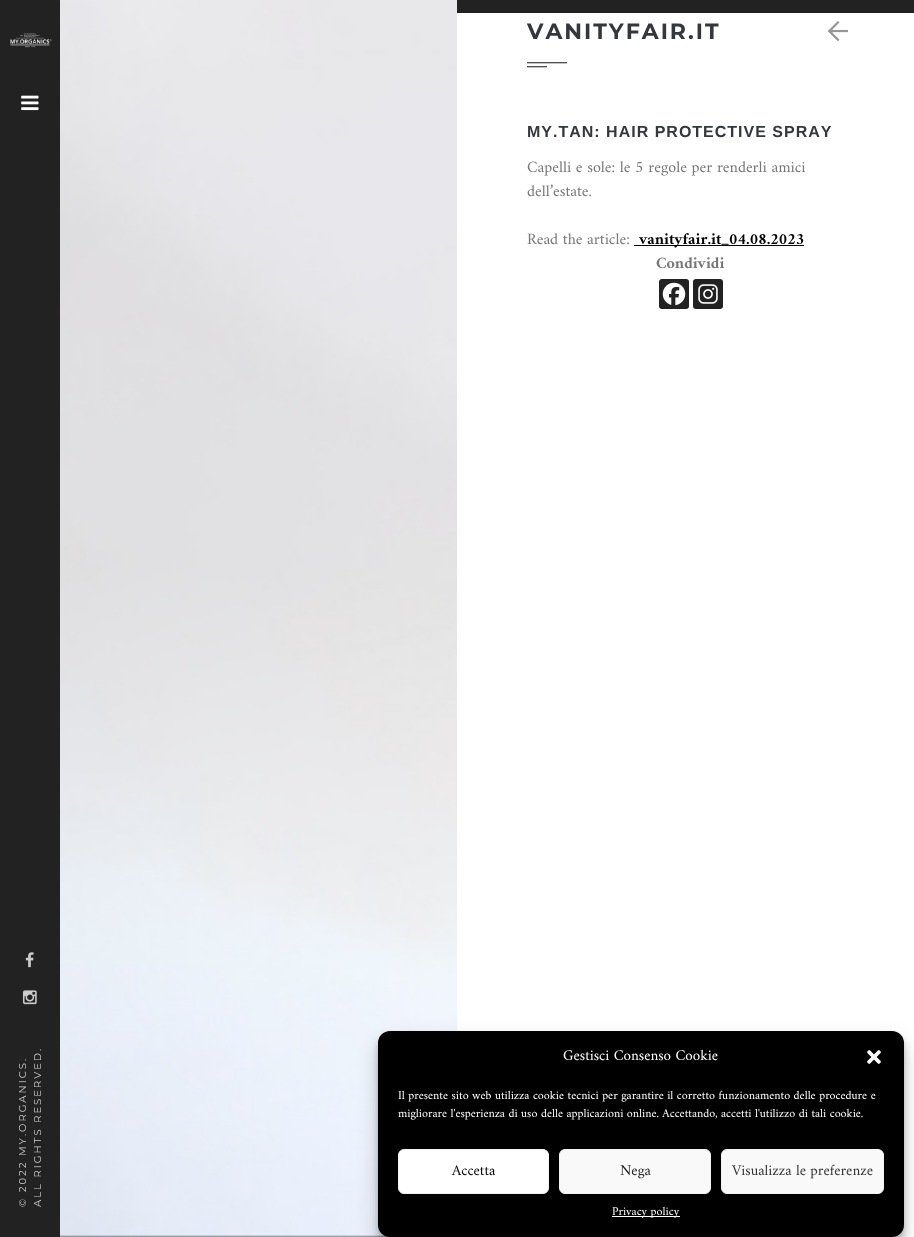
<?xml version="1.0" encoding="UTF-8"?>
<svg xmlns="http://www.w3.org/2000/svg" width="914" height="1237">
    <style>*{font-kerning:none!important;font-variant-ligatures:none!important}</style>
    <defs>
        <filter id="blur1" x="-50%" y="-200%" width="200%" height="500%"><feGaussianBlur stdDeviation="3"/></filter>
        <filter id="blur2" x="-50%" y="-200%" width="200%" height="500%"><feGaussianBlur stdDeviation="10"/></filter>
    </defs>
    <rect width="100%" height="100%" fill="#FFFFFF"/>
    <rect x="60" y="1235" width="330" height="2" fill="#111111"/>
    <image x="60" y="0" width="397" height="1237" href="img_01.png"/>
    <rect x="457" y="0" width="457" height="13" fill="#222222"/>
    <text x="527" y="39" font-family="Montserrat" font-size="22" font-weight="700" letter-spacing="2" fill="#35373E">VANITYFAIR.IT</text>
    <image x="827" y="21" width="21" height="21" href="img_02.png"/>
    <image x="527" y="62" width="40" height="6" href="img_03.png"/>
    <text x="527" y="137" font-family="Liberation Sans" font-size="16" font-weight="700" letter-spacing="1" fill="#35373E">MY.TAN: HAIR PROTECTIVE SPRAY</text>
    <text font-family="Amiri" font-size="16" fill="#777777">
        <tspan x="527" y="172">Capelli e sole: le 5 regole per renderli amici</tspan>
        <tspan x="527" y="196">dell’estate.</tspan>
    </text>
    <text x="527" y="244" font-family="Amiri" font-size="16" fill="#777777">Read the article:</text>
    <rect x="634" y="245" width="170" height="1" fill="#000000"/>
    <text x="639" y="244" font-family="Amiri" font-size="16" font-weight="700" fill="#000000">vanityfair.it_04.08.2023</text>
    <text x="656" y="268" font-family="Amiri" font-size="16" font-weight="700" fill="#777777">Condividi</text>
    <rect x="659" y="279" width="30" height="30" rx="3" fill="#222222"/>
    <image x="662" y="282" width="24" height="24" href="img_04.png"/>
    <rect x="693" y="279" width="30" height="30" rx="3" fill="#222222"/>
    <image x="698" y="284" width="20" height="20" href="img_05.png"/>
    <rect x="0" y="0" width="60" height="1237" fill="#222222"/>
    <image x="10" y="33" width="42" height="15" href="img_06.png"/>
    <image x="21" y="95" width="18" height="16" href="img_07.png"/>
    <image x="25" y="952" width="9" height="16" href="img_08.png"/>
    <image x="23" y="990" width="14" height="15" href="img_09.png"/>
    <text x="26" y="1207" transform="rotate(-90 26 1207)" font-family="Montserrat" font-size="10" letter-spacing="2" fill="#CCCCCC">© 2022 MY.ORGANICS.</text>
    <text x="41" y="1207" transform="rotate(-90 41 1207)" font-family="Montserrat" font-size="10" letter-spacing="2" fill="#CCCCCC">ALL RIGHTS RESERVED.</text>
    <rect x="378" y="1037" width="526" height="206" rx="12" fill="#000000" fill-opacity="0.23" filter="url(#blur1)"/>
    <rect x="378" y="1041" width="526" height="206" rx="12" fill="#000000" fill-opacity="0.19" filter="url(#blur2)"/>
    <rect x="378" y="1031" width="526" height="206" rx="12" fill="#000000"/>
    <text x="563" y="1060" font-family="Amiri" font-size="15" fill="#FFFFFF">Gestisci Consenso Cookie</text>
    <image x="867" y="1050" width="14" height="14" href="img_10.png"/>
    <text font-family="Amiri" font-size="12" fill="#FFFFFF">
        <tspan x="398" y="1099">Il presente sito web utilizza cookie tecnici per garantire il corretto funzionamento delle procedure e</tspan>
        <tspan x="398" y="1117">migliorare l'esperienza di uso delle applicazioni online. Accettando, accetti l'utilizzo di tali cookie.</tspan>
    </text>
    <rect x="398.5" y="1149.5" width="150" height="44" rx="5.5" fill="#FFFFFF" stroke="#F2F2F2"/>
    <text x="452" y="1175" font-family="Amiri" font-size="15" fill="#000000">Accetta</text>
    <rect x="559.5" y="1149.5" width="151" height="44" rx="5.5" fill="#F9F9F9" stroke="#F2F2F2"/>
    <text x="620" y="1175" font-family="Amiri" font-size="15" fill="#222222">Nega</text>
    <rect x="721.5" y="1149.5" width="162" height="44" rx="5.5" fill="#F9F9F9" stroke="#F2F2F2"/>
    <text x="732" y="1175" font-family="Amiri" font-size="15" fill="#333333">Visualizza le preferenze</text>
    <rect x="612" y="1216" width="68" height="1" fill="#FFFFFF"/>
    <text x="612" y="1215" font-family="Amiri" font-size="12" fill="#FFFFFF">Privacy policy</text>
</svg>
